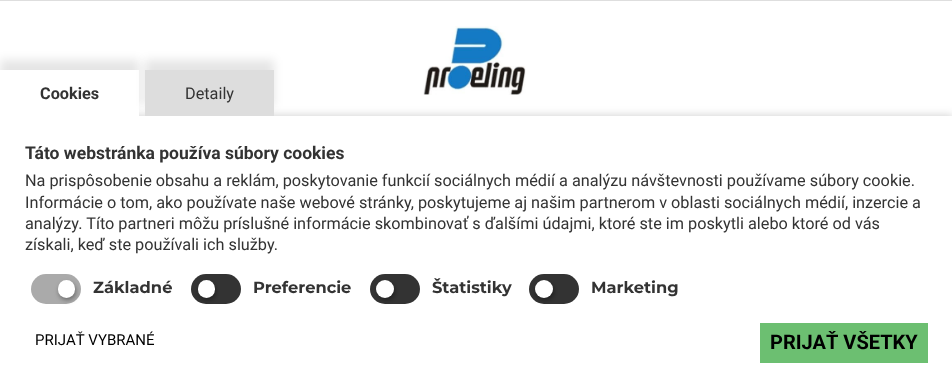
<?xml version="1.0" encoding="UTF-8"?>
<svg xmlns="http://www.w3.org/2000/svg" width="952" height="387">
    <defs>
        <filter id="blur1" x="-50%" y="-200%" width="200%" height="500%"><feGaussianBlur stdDeviation="5"/></filter>
        <filter id="blur2" x="-50%" y="-200%" width="200%" height="500%"><feGaussianBlur stdDeviation="2.5"/></filter>
    </defs>
    <rect width="100%" height="100%" fill="#FFFFFF"/>
    <rect x="0" y="0" width="952" height="1" fill="#DEDEDE"/>
    <image x="423" y="26" width="103" height="69" href="img_01.png"/>
    <rect x="0" y="116" width="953" height="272" fill="#000000" fill-opacity="0.2" filter="url(#blur1)"/>
    <rect x="0" y="116" width="952" height="271" fill="#FFFFFF"/>
    <rect x="0" y="60" width="139" height="46" fill="#000000" fill-opacity="0.1" filter="url(#blur1)"/>
    <rect x="0" y="70" width="139" height="46" fill="#FFFFFF"/>
    <text x="40" y="99" font-family="Roboto" font-size="16.25" font-weight="700" fill="#333333">Cookies</text>
    <rect x="145" y="60" width="129" height="46" fill="#000000" fill-opacity="0.1" filter="url(#blur1)"/>
    <rect x="145" y="70" width="129" height="46" fill="#DDDDDD"/>
    <text x="185" y="99" font-family="Roboto" font-size="16.25" fill="#333333">Detaily</text>
    <text x="25" y="159" font-family="Roboto" font-size="17.5" font-weight="700" fill="#333333">Táto webstránka používa súbory cookies</text>
    <text font-family="Roboto" font-size="16.25" fill="#333333">
        <tspan x="25" y="186">Na prispôsobenie obsahu a reklám, poskytovanie funkcií sociálnych médií a analýzu návštevnosti používame súbory cookie.</tspan>
        <tspan x="25" y="208">Informácie o tom, ako používate naše webové stránky, poskytujeme aj našim partnerom v oblasti sociálnych médií, inzercie a</tspan>
        <tspan x="25" y="229">analýzy. Títo partneri môžu príslušné informácie skombinovať s ďalšími údajmi, ktoré ste im poskytli alebo ktoré od vás</tspan>
        <tspan x="25" y="250">získali, keď ste používali ich služby.</tspan>
    </text>
    <rect x="31" y="274" width="50" height="30" rx="15" fill="#AAAAAA"/>
    <rect x="59" y="283" width="17" height="17" rx="8.5" fill="#000000" fill-opacity="0.4" filter="url(#blur2)"/>
    <rect x="58" y="280" width="17" height="18" rx="8.5" fill="#FFFFFF"/>
    <text x="93" y="293" font-family="Montserrat" font-size="16.25" font-weight="700" fill="#333333">Základné</text>
    <rect x="191" y="274" width="50" height="30" rx="15" fill="#333333"/>
    <rect x="199" y="283" width="17" height="17" rx="8.5" fill="#000000" fill-opacity="0.4" filter="url(#blur2)"/>
    <rect x="198" y="280" width="17" height="18" rx="8.5" fill="#FFFFFF"/>
    <text x="253" y="293" font-family="Montserrat" font-size="16.25" font-weight="700" fill="#333333">Preferencie</text>
    <rect x="370" y="274" width="50" height="30" rx="15" fill="#333333"/>
    <rect x="378" y="283" width="17" height="17" rx="8.5" fill="#000000" fill-opacity="0.4" filter="url(#blur2)"/>
    <circle cx="385" cy="289" r="9" fill="#FFFFFF"/>
    <text x="432" y="293" font-family="Montserrat" font-size="16.25" font-weight="700" fill="#333333">Štatistiky</text>
    <rect x="529" y="274" width="50" height="30" rx="15" fill="#333333"/>
    <rect x="536" y="283" width="18" height="17" rx="8.5" fill="#000000" fill-opacity="0.4" filter="url(#blur2)"/>
    <circle cx="544" cy="289" r="9" fill="#FFFFFF"/>
    <text x="591" y="293" font-family="Montserrat" font-size="16.25" font-weight="700" fill="#333333">Marketing</text>
    <text x="35" y="345" font-family="Roboto" font-size="15" fill="#000000">PRIJAŤ VYBRANÉ</text>
    <rect x="760" y="323" width="168" height="40" fill="#6CBF71"/>
    <text x="770" y="349" font-family="Roboto" font-size="20" font-weight="700" fill="#000000">PRIJAŤ VŠETKY</text>
</svg>
